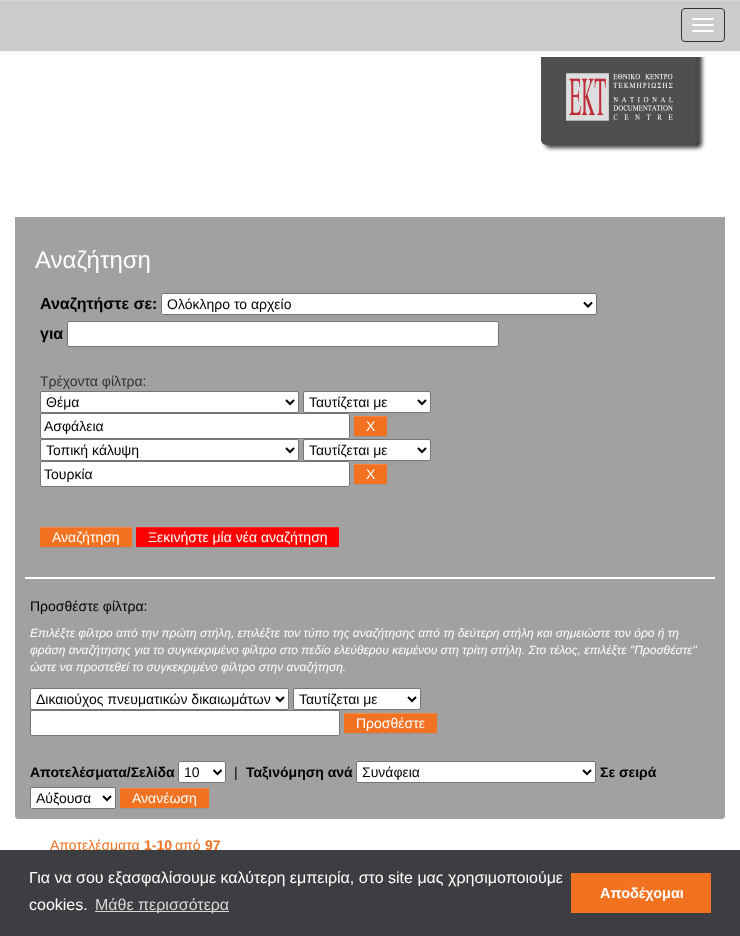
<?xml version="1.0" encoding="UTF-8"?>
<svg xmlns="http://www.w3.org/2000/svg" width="740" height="936">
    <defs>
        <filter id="blur1" x="-50%" y="-200%" width="200%" height="500%"><feGaussianBlur stdDeviation="2.5"/></filter>
        <filter id="blur2" x="-50%" y="-200%" width="200%" height="500%"><feGaussianBlur stdDeviation="0.5"/></filter>
    </defs>
    <rect width="100%" height="100%" fill="#FFFFFF"/>
    <image x="541" y="57" width="165" height="95" href="img_01.png"/>
    <rect x="0" y="1" width="740" height="51" fill="#000000" fill-opacity="0.07" filter="url(#blur1)"/>
    <rect x="0" y="1" width="740" height="50" fill="#CCCCCC"/>
    <rect x="0" y="0" width="740" height="1" fill="#D4D4D4"/>
    <rect x="681.5" y="8.5" width="43" height="33" rx="3.5" fill="none" stroke="#333333"/>
    <rect x="692" y="18" width="22" height="2" rx="1" fill="#FFFFFF"/>
    <rect x="692" y="24" width="22" height="2" rx="1" fill="#FFFFFF"/>
    <rect x="692" y="30" width="22" height="2" rx="1" fill="#FFFFFF"/>
    <rect x="15" y="217" width="710" height="534" fill="#A2A0A0"/>
    <text x="35" y="268" font-family="Liberation Sans" font-size="24" fill="#FFFFFF">Αναζήτηση</text>
    <rect x="25" y="577" width="690" height="2" fill="#FFFFFF"/>
    <text x="40" y="309" font-family="Liberation Sans" font-size="16" font-weight="700" fill="#000000">Αναζητήστε σε:</text>
    <rect x="161.5" y="293.5" width="435" height="21" rx="1.5" fill="#FFFFFF" stroke="#767676"/>
    <path d="M 584 302.5 L 588 306.5 L 592 302.5" fill="none" stroke="#000000" stroke-width="2"/>
    <text x="167" y="309" font-family="Liberation Sans" font-size="14" fill="#000000">Ολόκληρο το αρχείο</text>
    <text x="40" y="339" font-family="Liberation Sans" font-size="16" font-weight="700" fill="#000000">για</text>
    <rect x="67.5" y="321.5" width="431" height="25" rx="1.5" fill="#FFFFFF" stroke="#767676"/>
    <text x="40" y="386" font-family="Liberation Sans" font-size="14" fill="#333333">Τρέχοντα φίλτρα:</text>
    <rect x="40.5" y="391.5" width="258" height="21" rx="1.5" fill="#FFFFFF" stroke="#767676"/>
    <path d="M 286 400 L 290 404 L 294 400" fill="none" stroke="#000000" stroke-width="2"/>
    <text x="46" y="407" font-family="Liberation Sans" font-size="14" fill="#000000">Θέμα</text>
    <rect x="303.5" y="391.5" width="127" height="21" rx="1.5" fill="#FFFFFF" stroke="#767676"/>
    <path d="M 418 400 L 422 404 L 426 400" fill="none" stroke="#000000" stroke-width="2"/>
    <text x="309" y="407" font-family="Liberation Sans" font-size="14" fill="#000000">Ταυτίζεται με</text>
    <rect x="40.5" y="413.5" width="309" height="25" rx="1.5" fill="#FFFFFF" stroke="#767676"/>
    <text x="44" y="431" font-family="Liberation Sans" font-size="14" fill="#000000">Ασφάλεια</text>
    <rect x="303.5" y="439.5" width="127" height="21" rx="1.5" fill="#FFFFFF" stroke="#767676"/>
    <rect x="354" y="417" width="33" height="20" fill="#000000" fill-opacity="0.07" filter="url(#blur2)"/>
    <rect x="354" y="417" width="33" height="19" fill="#F27221"/>
    <rect x="354" y="416" width="33" height="1" fill="#F48742"/>
    <text x="366" y="431" font-family="Liberation Sans" font-size="14" fill="#FFFFFF">X</text>
    <rect x="40.5" y="439.5" width="258" height="21" rx="1.5" fill="#FFFFFF" stroke="#767676"/>
    <path d="M 286 448 L 290 452 L 294 448" fill="none" stroke="#000000" stroke-width="2"/>
    <text x="46" y="455" font-family="Liberation Sans" font-size="14" fill="#000000">Τοπική κάλυψη</text>
    <path d="M 418 448 L 422 452 L 426 448" fill="none" stroke="#000000" stroke-width="2"/>
    <text x="309" y="455" font-family="Liberation Sans" font-size="14" fill="#000000">Ταυτίζεται με</text>
    <rect x="40.5" y="461.5" width="309" height="25" rx="1.5" fill="#FFFFFF" stroke="#767676"/>
    <text x="44" y="479" font-family="Liberation Sans" font-size="14" fill="#000000">Τουρκία</text>
    <rect x="354" y="465" width="33" height="20" fill="#000000" fill-opacity="0.07" filter="url(#blur2)"/>
    <rect x="354" y="465" width="33" height="19" fill="#F27221"/>
    <rect x="354" y="464" width="33" height="1" fill="#F48742"/>
    <text x="366" y="479" font-family="Liberation Sans" font-size="14" fill="#FFFFFF">X</text>
    <rect x="40" y="528" width="92" height="20" fill="#000000" fill-opacity="0.07" filter="url(#blur2)"/>
    <rect x="40" y="528" width="92" height="19" fill="#F27221"/>
    <rect x="40" y="527" width="92" height="1" fill="#F48742"/>
    <text x="52" y="542" font-family="Liberation Sans" font-size="14" fill="#FFFFFF">Αναζήτηση</text>
    <rect x="136" y="528" width="203" height="20" fill="#000000" fill-opacity="0.07" filter="url(#blur2)"/>
    <rect x="136" y="528" width="203" height="19" fill="#FF0000"/>
    <rect x="136" y="527" width="203" height="1" fill="#FF2626"/>
    <text x="148" y="542" font-family="Liberation Sans" font-size="14" fill="#FFFFFF">Ξεκινήστε μία νέα αναζήτηση</text>
    <text x="30" y="611" font-family="Liberation Sans" font-size="14" fill="#000000">Προσθέστε φίλτρα:</text>
    <text font-family="Liberation Sans" font-size="12" font-style="italic" fill="#FFFFFF">
        <tspan x="30" y="637">Επιλέξτε φίλτρο από την πρώτη στήλη, επιλέξτε τον τύπο της αναζήτησης από τη δεύτερη στήλη και σημειώστε τον όρο ή τη</tspan>
        <tspan x="30" y="654">φράση αναζήτησης για το συγκεκριμένο φίλτρο στο πεδίο ελεύθερου κειμένου στη τρίτη στήλη. Στο τέλος, επιλέξτε "Προσθέστε"</tspan>
        <tspan x="30" y="671">ώστε να προστεθεί το συγκεκριμένο φίλτρο στην αναζήτηση.</tspan>
    </text>
    <rect x="30.5" y="688.5" width="258" height="21" rx="1.5" fill="#FFFFFF" stroke="#767676"/>
    <path d="M 276 697 L 280 701 L 284 697" fill="none" stroke="#000000" stroke-width="2"/>
    <text x="36" y="704" font-family="Liberation Sans" font-size="14" fill="#000000">Δικαιούχος πνευματικών δικαιωμάτων</text>
    <rect x="293.5" y="688.5" width="127" height="21" rx="1.5" fill="#FFFFFF" stroke="#767676"/>
    <path d="M 408 697 L 412 701 L 416 697" fill="none" stroke="#000000" stroke-width="2"/>
    <text x="299" y="704" font-family="Liberation Sans" font-size="14" fill="#000000">Ταυτίζεται με</text>
    <rect x="30.5" y="710.5" width="309" height="25" rx="1.5" fill="#FFFFFF" stroke="#767676"/>
    <rect x="344" y="714" width="93" height="20" fill="#000000" fill-opacity="0.07" filter="url(#blur2)"/>
    <rect x="344" y="714" width="93" height="19" fill="#F27221"/>
    <rect x="344" y="713" width="93" height="1" fill="#F48742"/>
    <text x="356" y="728" font-family="Liberation Sans" font-size="14" fill="#FFFFFF">Προσθέστε</text>
    <path d="M 15 751 H 725 V 816 C 725 817.5 723.5 819 722 819 H 18 C 16.5 819 15 817.5 15 816 Z" fill="#A2A0A0"/>
    <text x="30" y="777" font-family="Liberation Sans" font-size="14" font-weight="700" fill="#000000">Αποτελέσματα/Σελίδα</text>
    <rect x="178.5" y="761.5" width="47" height="21" rx="1.5" fill="#FFFFFF" stroke="#767676"/>
    <path d="M 213.5 770 L 217.5 774 L 221.5 770" fill="none" stroke="#000000" stroke-width="2"/>
    <text x="184" y="777" font-family="Liberation Sans" font-size="14" fill="#000000">10</text>
    <text x="234" y="777" font-family="Liberation Sans" font-size="14" fill="#000000">|</text>
    <text x="246" y="777" font-family="Liberation Sans" font-size="14" font-weight="700" fill="#000000">Ταξινόμηση ανά</text>
    <rect x="356.5" y="761.5" width="239" height="21" rx="1.5" fill="#FFFFFF" stroke="#767676"/>
    <path d="M 583 770 L 587 774 L 591 770" fill="none" stroke="#000000" stroke-width="2"/>
    <text x="362" y="777" font-family="Liberation Sans" font-size="14" fill="#000000">Συνάφεια</text>
    <text x="600" y="777" font-family="Liberation Sans" font-size="14" font-weight="700" fill="#000000">Σε σειρά</text>
    <rect x="30.5" y="787.5" width="85" height="21" rx="1.5" fill="#FFFFFF" stroke="#767676"/>
    <path d="M 103 796 L 107 800 L 111 796" fill="none" stroke="#000000" stroke-width="2"/>
    <text x="36" y="803" font-family="Liberation Sans" font-size="14" fill="#000000">Αύξουσα</text>
    <rect x="120" y="789" width="89" height="20" fill="#000000" fill-opacity="0.07" filter="url(#blur2)"/>
    <rect x="120" y="789" width="89" height="19" fill="#F27221"/>
    <rect x="120" y="788" width="89" height="1" fill="#F48742"/>
    <text x="132" y="803" font-family="Liberation Sans" font-size="14" fill="#FFFFFF">Ανανέωση</text>
    <text x="50" y="850" font-family="Liberation Sans" font-size="14" fill="#F27221">Αποτελέσματα</text>
    <text x="144" y="850" font-family="Liberation Sans" font-size="14" font-weight="700" fill="#F27221">1-10</text>
    <text x="175" y="850" font-family="Liberation Sans" font-size="14" fill="#F27221">από</text>
    <text x="205" y="850" font-family="Liberation Sans" font-size="14" font-weight="700" fill="#F27221">97</text>
    <rect x="0" y="850" width="740" height="86" fill="#3D3E42"/>
    <text font-family="Liberation Sans" font-size="16" fill="#FFFFFF">
        <tspan x="29" y="883">Για να σου εξασφαλίσουμε καλύτερη εμπειρία, στο site μας χρησιμοποιούμε</tspan>
        <tspan x="29" y="910">cookies.</tspan>
    </text>
    <rect x="95" y="911" width="134" height="1" fill="#D8D8D9"/>
    <text x="95" y="910" font-family="Liberation Sans" font-size="16" fill="#D8D8D9">Μάθε περισσότερα</text>
    <rect x="571" y="873" width="140" height="40" fill="#F27221"/>
    <text x="600" y="898" font-family="Liberation Sans" font-size="14.5" font-weight="700" fill="#FFFFFF">Αποδέχομαι</text>
</svg>
